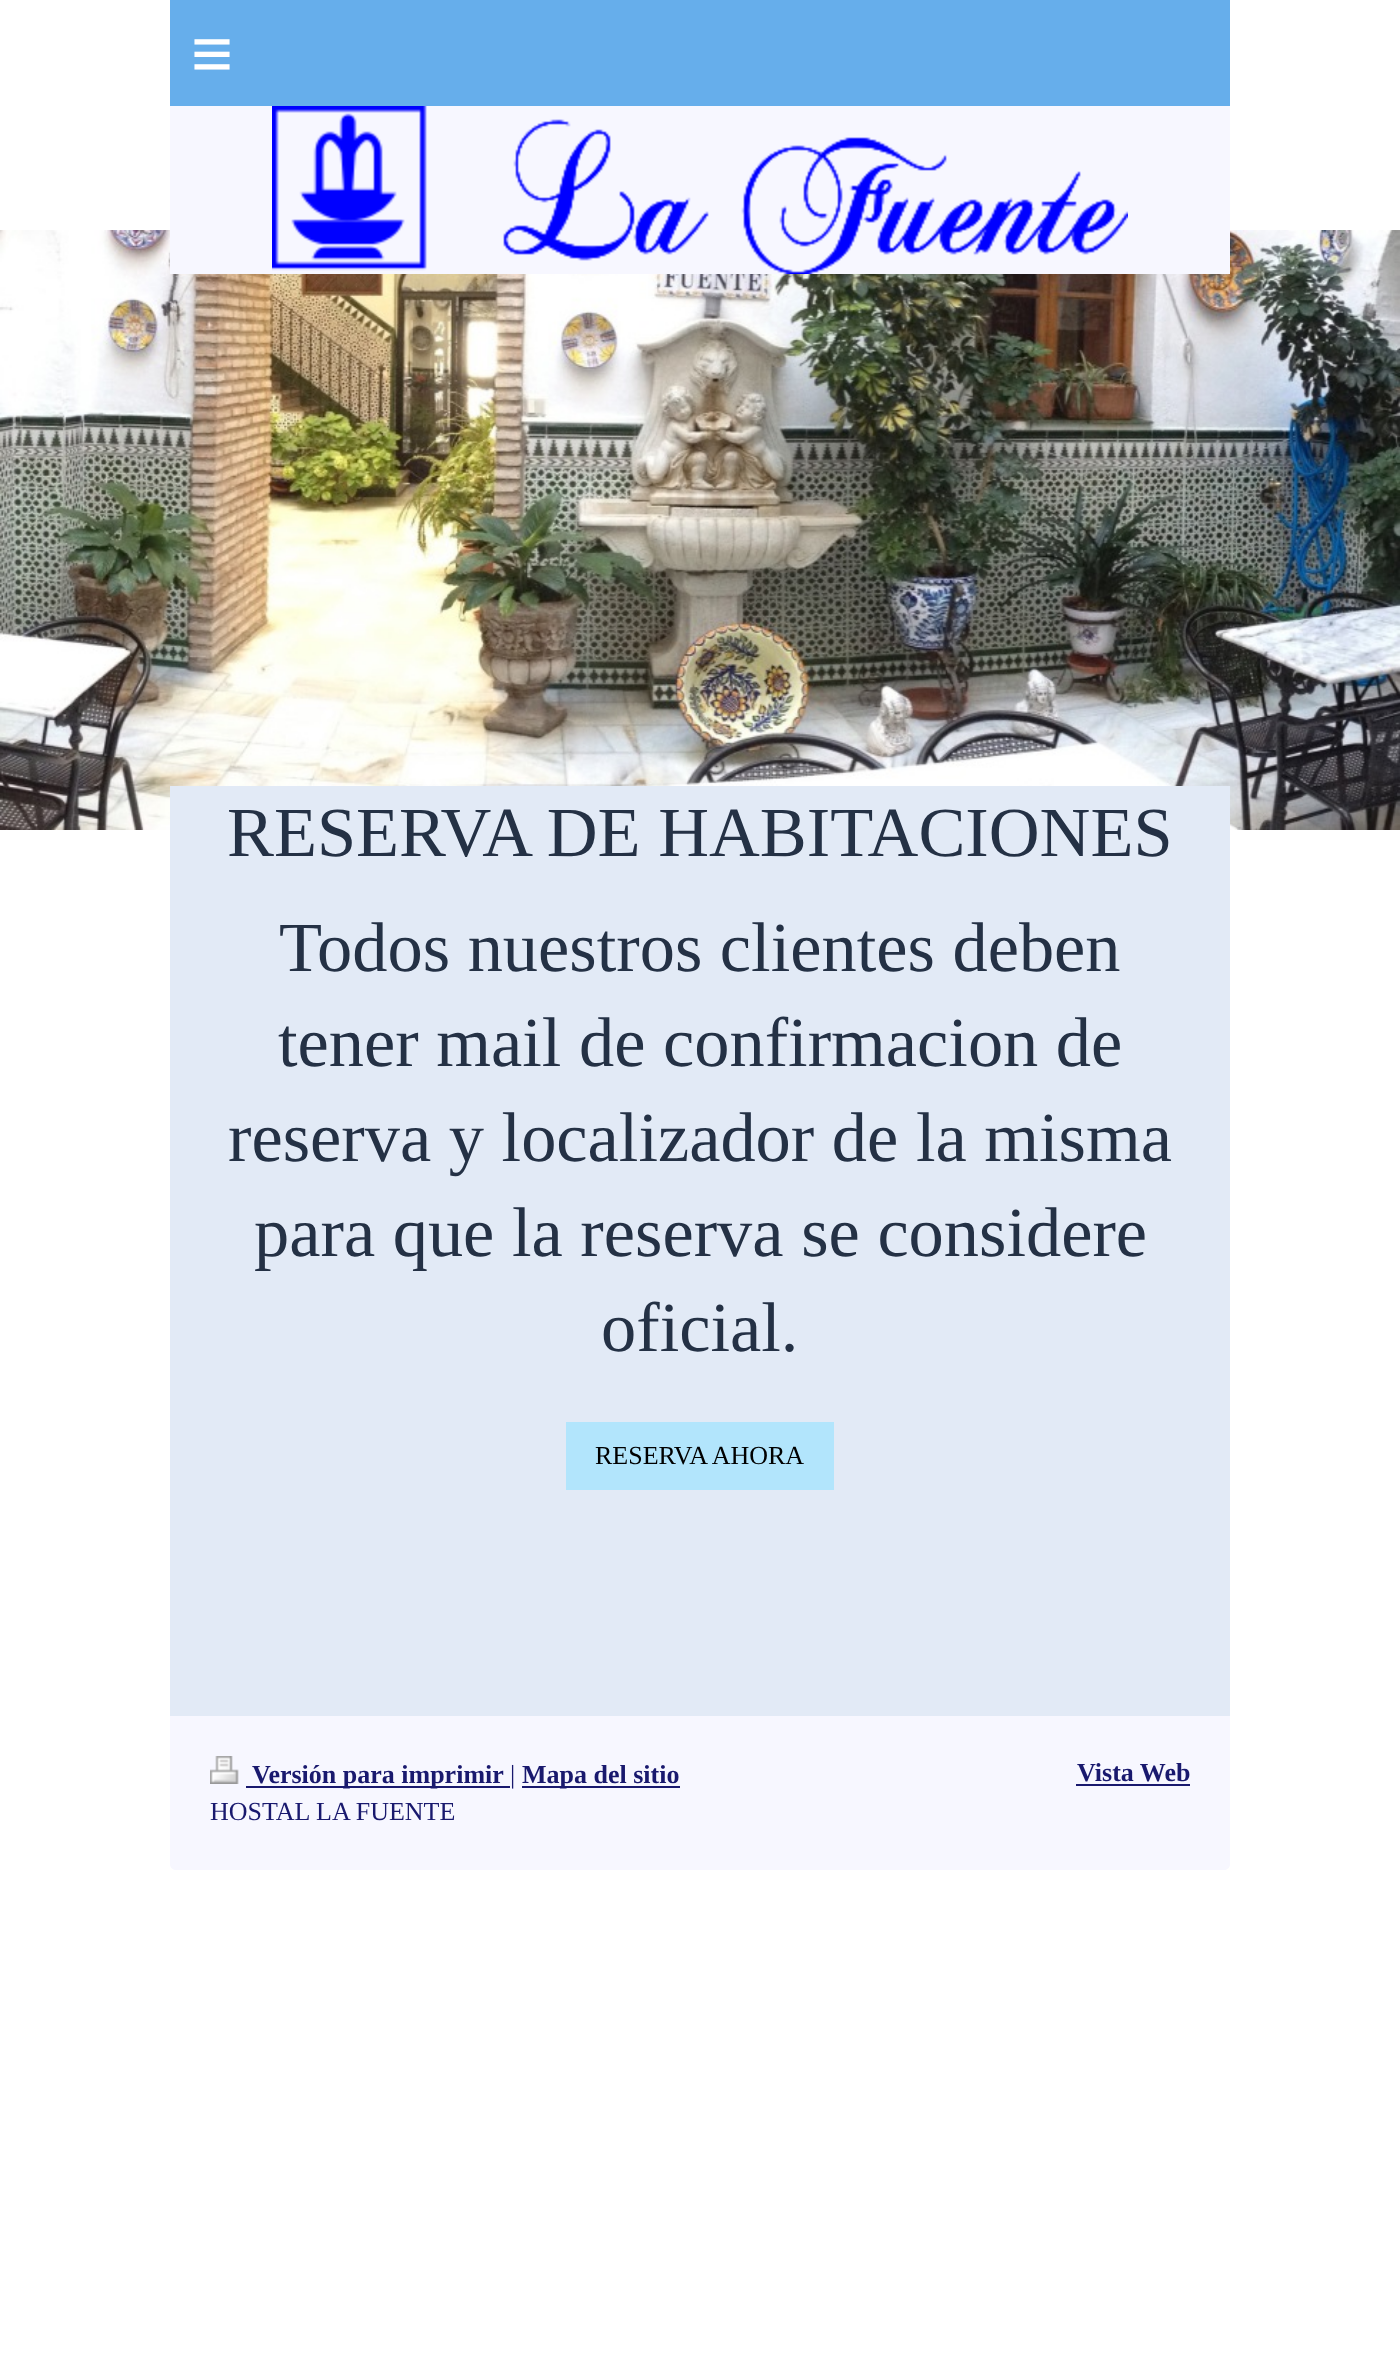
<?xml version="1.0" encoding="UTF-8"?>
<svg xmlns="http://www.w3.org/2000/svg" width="1400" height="2362">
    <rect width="100%" height="100%" fill="#FFFFFF"/>
    <rect x="170" y="0" width="1060" height="106" fill="#66AEEB"/>
    <text x="191" y="78" font-family="Liberation Sans" font-size="72" letter-spacing="21" fill="#FFFFFF">≡</text>
    <image x="0" y="230" width="1400" height="600" href="img_02.png"/>
    <rect x="170" y="106" width="1060" height="168" fill="#F7F7FF"/>
    <image x="272" y="106" width="856" height="168" href="img_01.png"/>
    <rect x="170" y="786" width="1060" height="930" fill="#E2EAF6"/>
    <text x="227" y="856" font-family="Liberation Serif" font-size="70.4" fill="#243145">RESERVA DE HABITACIONES</text>
    <text x="279" y="971" font-family="Liberation Serif" font-size="70.4" fill="#243145">Todos nuestros clientes deben</text>
    <text x="278" y="1066" font-family="Liberation Serif" font-size="70.4" fill="#243145">tener mail de confirmacion de</text>
    <text x="228" y="1161" font-family="Liberation Serif" font-size="70.4" fill="#243145">reserva y localizador de la misma</text>
    <text x="254" y="1256" font-family="Liberation Serif" font-size="70.4" fill="#243145">para que la reserva se considere</text>
    <text x="601" y="1351" font-family="Liberation Serif" font-size="70.4" fill="#243145">oficial.</text>
    <rect x="566" y="1422" width="268" height="68" fill="#B2E5FC"/>
    <text x="595" y="1464" font-family="Liberation Serif" font-size="26" fill="#000000">RESERVA AHORA</text>
    <path d="M 170 1716 H 1230 V 1864 C 1230 1867.5 1227.5 1870 1224 1870 H 176 C 172.5 1870 170 1867.5 170 1864 Z" fill="#F7F7FF"/>
    <image x="210" y="1756" width="29" height="28" href="img_03.png"/>
    <rect x="246" y="1786" width="264" height="2" fill="#19196E"/>
    <text x="252" y="1783" font-family="Liberation Serif" font-size="26" font-weight="700" fill="#19196E">Versión para imprimir</text>
    <text x="510" y="1783" font-family="Liberation Serif" font-size="26" fill="#19196E">|</text>
    <rect x="522" y="1786" width="158" height="2" fill="#19196E"/>
    <text x="522" y="1783" font-family="Liberation Serif" font-size="26" font-weight="700" fill="#19196E">Mapa del sitio</text>
    <text x="210" y="1820" font-family="Liberation Serif" font-size="26" fill="#19196E">HOSTAL LA FUENTE</text>
    <text x="1077" y="1781" font-family="Liberation Serif" font-size="26" font-weight="700" fill="#19196E">Vista Web</text>
    <rect x="1076" y="1784" width="114" height="2" fill="#19196E"/>
</svg>
